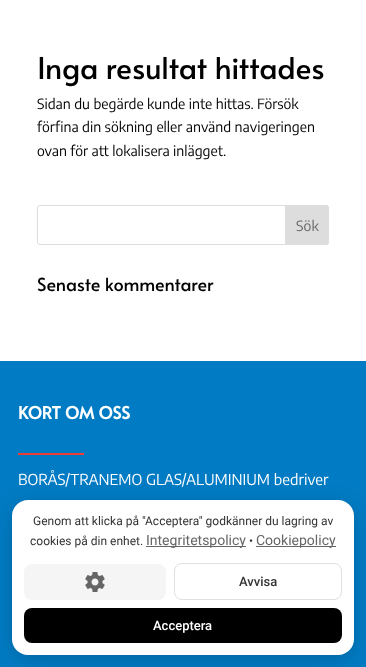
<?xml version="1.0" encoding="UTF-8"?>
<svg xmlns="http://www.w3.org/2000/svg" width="366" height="667">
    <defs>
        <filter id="blur1" x="-50%" y="-200%" width="200%" height="500%"><feGaussianBlur stdDeviation="4"/></filter>
        <filter id="blur2" x="-50%" y="-200%" width="200%" height="500%"><feGaussianBlur stdDeviation="16"/></filter>
    </defs>
    <rect width="100%" height="100%" fill="#FFFFFF"/>
    <text x="37" y="79" font-family="Alata" font-size="30" fill="#000000">Inga resultat hittades</text>
    <text font-family="Encode Sans Condensed" font-size="14" font-weight="100" fill="#000000">
        <tspan x="37" y="109">Sidan du begärde kunde inte hittas. Försök</tspan>
        <tspan x="37" y="132">förfina din sökning eller använd navigeringen</tspan>
        <tspan x="37" y="156">ovan för att lokalisera inlägget.</tspan>
    </text>
    <rect x="37.5" y="205.5" width="291" height="39" rx="2.5" fill="none" stroke="#DDDDDD"/>
    <path d="M 285.5 205.5 H 326 C 327.5 205.5 328.5 206.5 328.5 208 V 242 C 328.5 243.5 327.5 244.5 326 244.5 H 285.5 Z" fill="#DDDDDD" stroke="#DDDDDD"/>
    <text x="296" y="231" font-family="Encode Sans Condensed" font-size="14" font-weight="100" fill="#666666">Sök</text>
    <text x="37" y="291" font-family="Alata" font-size="18" fill="#000000">Senaste kommentarer</text>
    <rect x="0" y="361" width="366" height="306" fill="#017BC4"/>
    <text x="18" y="419" font-family="Alata" font-size="17" font-weight="700" fill="#FFFFFF">KORT OM OSS</text>
    <rect x="18" y="453" width="66" height="2" fill="#EF3D33"/>
    <text x="18" y="485" font-family="Encode Sans Condensed" font-size="15" font-weight="100" fill="#FFFFFF">BORÅS/TRANEMO GLAS/ALUMINIUM bedriver</text>
    <rect x="12" y="502" width="342" height="155" rx="16" fill="#000000" fill-opacity="0.08" filter="url(#blur1)"/>
    <rect x="12" y="508" width="342" height="155" rx="16" fill="#000000" fill-opacity="0.12" filter="url(#blur2)"/>
    <rect x="12" y="500" width="342" height="155" rx="16" fill="#FFFFFF"/>
    <text x="33" y="525" font-family="Roboto" font-size="12" fill="#333333">Genom att klicka på "Acceptera" godkänner du lagring av</text>
    <text x="30" y="545" font-family="Roboto" font-size="12" fill="#333333">cookies på din enhet.</text>
    <rect x="146" y="546" width="100" height="1" fill="#666666"/>
    <text x="146" y="545" font-family="Roboto" font-size="14" fill="#666666">Integritetspolicy</text>
    <text x="249" y="545" font-family="Roboto" font-size="12" fill="#333333">•</text>
    <rect x="256" y="546" width="80" height="1" fill="#666666"/>
    <text x="256" y="545" font-family="Roboto" font-size="14" fill="#666666">Cookiepolicy</text>
    <rect x="24" y="564" width="142" height="36" rx="8" fill="#F5F5F5"/>
    <image x="85" y="572" width="20" height="20" href="img_01.png"/>
    <rect x="174.5" y="563.5" width="167" height="36" rx="7.5" fill="none" stroke="#E0E0E0"/>
    <text x="239" y="586" font-family="Roboto" font-size="13" font-weight="500" fill="#333333">Avvisa</text>
    <rect x="24" y="608" width="318" height="35" rx="8" fill="#000000"/>
    <text x="153" y="630" font-family="Roboto" font-size="13" font-weight="500" fill="#FFFFFF">Acceptera</text>
</svg>
